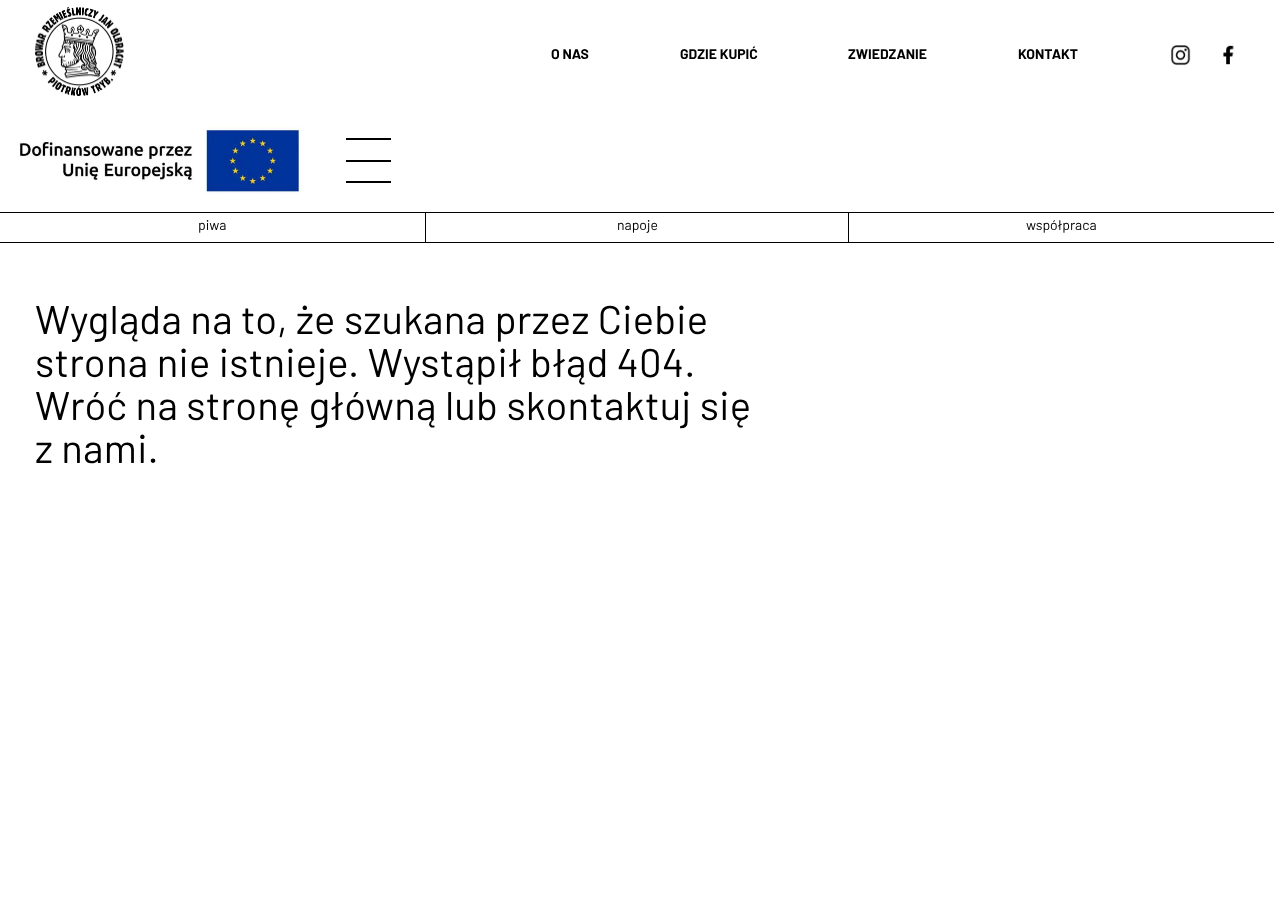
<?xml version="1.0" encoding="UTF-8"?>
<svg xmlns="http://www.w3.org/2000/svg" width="1274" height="921">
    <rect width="100%" height="100%" fill="#FFFFFF"/>
    <rect x="0" y="242" width="1274" height="1" fill="#000000"/>
    <image x="35" y="7" width="89" height="89" href="img_01.png"/>
    <text x="551" y="59" font-family="Barlow" font-size="14" font-weight="700" fill="#000000">O NAS</text>
    <text x="680" y="59" font-family="Barlow" font-size="14" font-weight="700" fill="#000000">GDZIE KUPIĆ</text>
    <text x="848" y="59" font-family="Barlow" font-size="14" font-weight="700" fill="#000000">ZWIEDZANIE</text>
    <text x="1018" y="59" font-family="Barlow" font-size="14" font-weight="700" fill="#000000">KONTAKT</text>
    <image x="1170" y="45" width="21" height="21" href="img_02.png"/>
    <image x="1223" y="45" width="11" height="20" href="img_03.png"/>
    <image x="19" y="127" width="283" height="67" href="img_04.png"/>
    <rect x="346" y="160" width="45" height="2" fill="#000000"/>
    <rect x="346" y="138" width="45" height="2" fill="#000000"/>
    <rect x="346" y="181" width="45" height="2" fill="#000000"/>
    <rect x="0" y="212" width="1274" height="1" fill="#000000"/>
    <text x="198" y="230" font-family="Barlow" font-size="14" fill="#000000">piwa</text>
    <rect x="848" y="213" width="1" height="29" fill="#000000"/>
    <rect x="425" y="213" width="1" height="29" fill="#000000"/>
    <text x="617" y="230" font-family="Barlow" font-size="14" fill="#000000">napoje</text>
    <text x="1026" y="230" font-family="Barlow" font-size="14" fill="#000000">współpraca</text>
    <text font-family="Barlow" font-size="40" letter-spacing="0.25" fill="#000000">
        <tspan x="35" y="334">Wygląda na to, że szukana przez Ciebie</tspan>
        <tspan x="35" y="377">strona nie istnieje. Wystąpił błąd 404.</tspan>
        <tspan x="35" y="420">Wróć na stronę główną lub skontaktuj się</tspan>
        <tspan x="35" y="463">z nami.</tspan>
    </text>
</svg>
